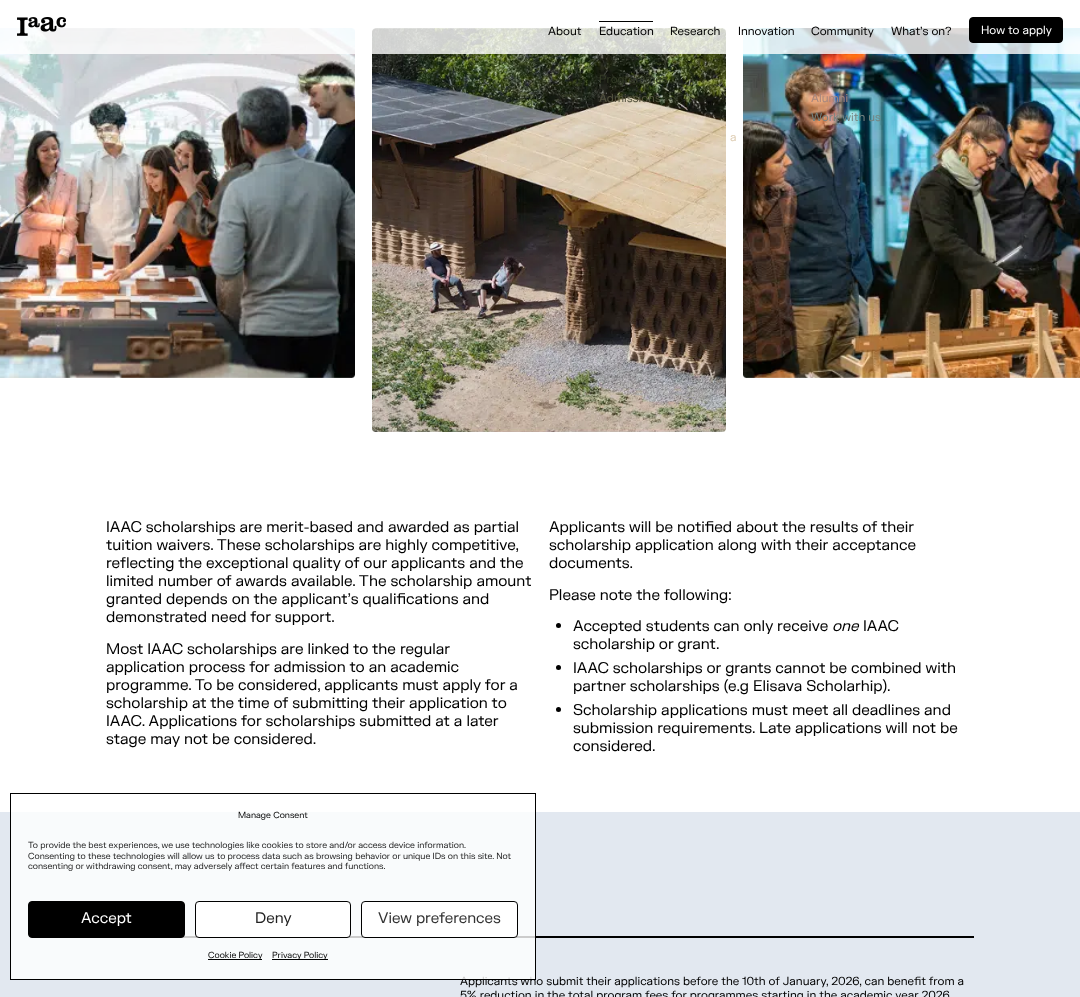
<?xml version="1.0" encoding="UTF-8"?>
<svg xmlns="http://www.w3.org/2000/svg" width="1080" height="997">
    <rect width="100%" height="100%" fill="#FFFFFF"/>
    <image x="0" y="28" width="355" height="350" href="img_02.png"/>
    <image x="372" y="28" width="354" height="404" href="img_03.png"/>
    <image x="743" y="28" width="337" height="350" href="img_04.png"/>
    <rect x="0" y="28" width="1080" height="26" fill="#FFFFFF" fill-opacity="0.8"/>
    <image x="17" y="17" width="49" height="19" href="img_01.png"/>
    <text x="548" y="35" font-family="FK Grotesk" font-size="11.45" fill="#000000">About</text>
    <rect x="599" y="21" width="54" height="1" fill="#000000"/>
    <text x="599" y="35" font-family="FK Grotesk" font-size="11.45" fill="#000000">Education</text>
    <text x="599" y="83" font-family="FK Grotesk" font-size="11.45" fill="#333A26">Programmes</text>
    <text x="599" y="102" font-family="FK Grotesk" font-size="11.45" fill="#53523F">Admissions</text>
    <text x="730" y="141" font-family="FK Grotesk" font-size="11.45" fill="#DFCEB5">a</text>
    <text x="670" y="35" font-family="FK Grotesk" font-size="11.45" fill="#000000">Research</text>
    <text x="738" y="35" font-family="FK Grotesk" font-size="11.45" fill="#000000">Innovation</text>
    <text x="811" y="35" font-family="FK Grotesk" font-size="11.45" fill="#000000">Community</text>
    <text x="811" y="102" font-family="FK Grotesk" font-size="11.45" fill="#A6877E">Alumni</text>
    <text x="811" y="121" font-family="FK Grotesk" font-size="11.45" fill="#768481">Work with us</text>
    <text x="891" y="35" font-family="FK Grotesk" font-size="11.45" fill="#000000">What’s on?</text>
    <rect x="969.5" y="17.5" width="93" height="25" rx="3.5" fill="#000000" stroke="#000000"/>
    <text x="981" y="34" font-family="FK Grotesk" font-size="11.45" fill="#FFFFFF">How to apply</text>
    <text font-family="FK Grotesk" font-size="15.1" fill="#000000">
        <tspan x="106" y="532">IAAC scholarships are merit-based and awarded as partial</tspan>
        <tspan x="106" y="550">tuition waivers. These scholarships are highly competitive,</tspan>
        <tspan x="106" y="568">reflecting the exceptional quality of our applicants and the</tspan>
        <tspan x="106" y="586">limited number of awards available. The scholarship amount</tspan>
        <tspan x="106" y="604">granted depends on the applicant’s qualifications and</tspan>
        <tspan x="106" y="622">demonstrated need for support.</tspan>
    </text>
    <text font-family="FK Grotesk" font-size="15.1" fill="#000000">
        <tspan x="106" y="654">Most IAAC scholarships are linked to the regular</tspan>
        <tspan x="106" y="672">application process for admission to an academic</tspan>
        <tspan x="106" y="690">programme. To be considered, applicants must apply for a</tspan>
        <tspan x="106" y="708">scholarship at the time of submitting their application to</tspan>
        <tspan x="106" y="726">IAAC. Applications for scholarships submitted at a later</tspan>
        <tspan x="106" y="744">stage may not be considered.</tspan>
    </text>
    <text font-family="FK Grotesk" font-size="15.1" fill="#000000">
        <tspan x="549" y="532">Applicants will be notified about the results of their</tspan>
        <tspan x="549" y="550">scholarship application along with their acceptance</tspan>
        <tspan x="549" y="568">documents.</tspan>
    </text>
    <text x="549" y="600" font-family="FK Grotesk" font-size="15.1" fill="#000000">Please note the following:</text>
    <circle cx="558.5" cy="625.5" r="2.5" fill="#000000"/>
    <text x="573" y="631" font-family="FK Grotesk" font-size="15.1" fill="#000000">Accepted students can only receive</text>
    <text x="832" y="631" font-family="FK Grotesk" font-size="15.1" font-style="italic" fill="#000000">one</text>
    <text x="863" y="631" font-family="FK Grotesk" font-size="15.1" fill="#000000">IAAC</text>
    <text x="573" y="649" font-family="FK Grotesk" font-size="15.1" fill="#000000">scholarship or grant.</text>
    <circle cx="558.5" cy="667.5" r="2.5" fill="#000000"/>
    <text font-family="FK Grotesk" font-size="15.1" fill="#000000">
        <tspan x="573" y="673">IAAC scholarships or grants cannot be combined with</tspan>
        <tspan x="573" y="691">partner scholarships (e.g Elisava Scholarhip).</tspan>
    </text>
    <circle cx="558.5" cy="709.5" r="2.5" fill="#000000"/>
    <text font-family="FK Grotesk" font-size="15.1" fill="#000000">
        <tspan x="573" y="715">Scholarship applications must meet all deadlines and</tspan>
        <tspan x="573" y="733">submission requirements. Late applications will not be</tspan>
        <tspan x="573" y="751">considered.</tspan>
    </text>
    <rect x="0" y="812" width="1080" height="185" fill="#E2E8F0"/>
    <rect x="181" y="936" width="793" height="2" fill="#000000"/>
    <text font-family="FK Grotesk" font-size="11.45" fill="#000000">
        <tspan x="460" y="985">Applicants who submit their applications before the 10th of January, 2026, can benefit from a</tspan>
        <tspan x="460" y="999">5% reduction in the total program fees for programmes starting in the academic year 2026</tspan>
    </text>
    <rect x="11" y="812" width="524" height="167" fill="#FFFFFF" fill-opacity="0.8"/>
    <rect x="10.5" y="793.5" width="525" height="186" fill="none" stroke="#000000"/>
    <text x="238" y="818" font-family="FK Grotesk" font-size="8.57" fill="#000000">Manage Consent</text>
    <text font-family="FK Grotesk" font-size="8.57" fill="#222222">
        <tspan x="28" y="848">To provide the best experiences, we use technologies like cookies to store and/or access device information.</tspan>
        <tspan x="28" y="859">Consenting to these technologies will allow us to process data such as browsing behavior or unique IDs on this site. Not</tspan>
        <tspan x="28" y="869">consenting or withdrawing consent, may adversely affect certain features and functions.</tspan>
    </text>
    <rect x="28.5" y="901.5" width="156" height="36" rx="3.5" fill="#000000" stroke="#000000"/>
    <text x="81" y="923" font-family="FK Grotesk" font-size="15" fill="#FFFFFF">Accept</text>
    <rect x="195.5" y="901.5" width="155" height="36" rx="3.5" fill="#FFFFFF" stroke="#000000"/>
    <text x="255" y="923" font-family="FK Grotesk" font-size="15" fill="#222222">Deny</text>
    <rect x="361.5" y="901.5" width="156" height="36" rx="3.5" fill="#FFFFFF" stroke="#000000"/>
    <text x="378" y="923" font-family="FK Grotesk" font-size="15" fill="#333333">View preferences</text>
    <rect x="208" y="959" width="54" height="1" fill="#000000"/>
    <text x="208" y="958" font-family="FK Grotesk" font-size="8.57" fill="#000000">Cookie Policy</text>
    <rect x="272" y="959" width="56" height="1" fill="#000000"/>
    <text x="272" y="958" font-family="FK Grotesk" font-size="8.57" fill="#000000">Privacy Policy</text>
</svg>
